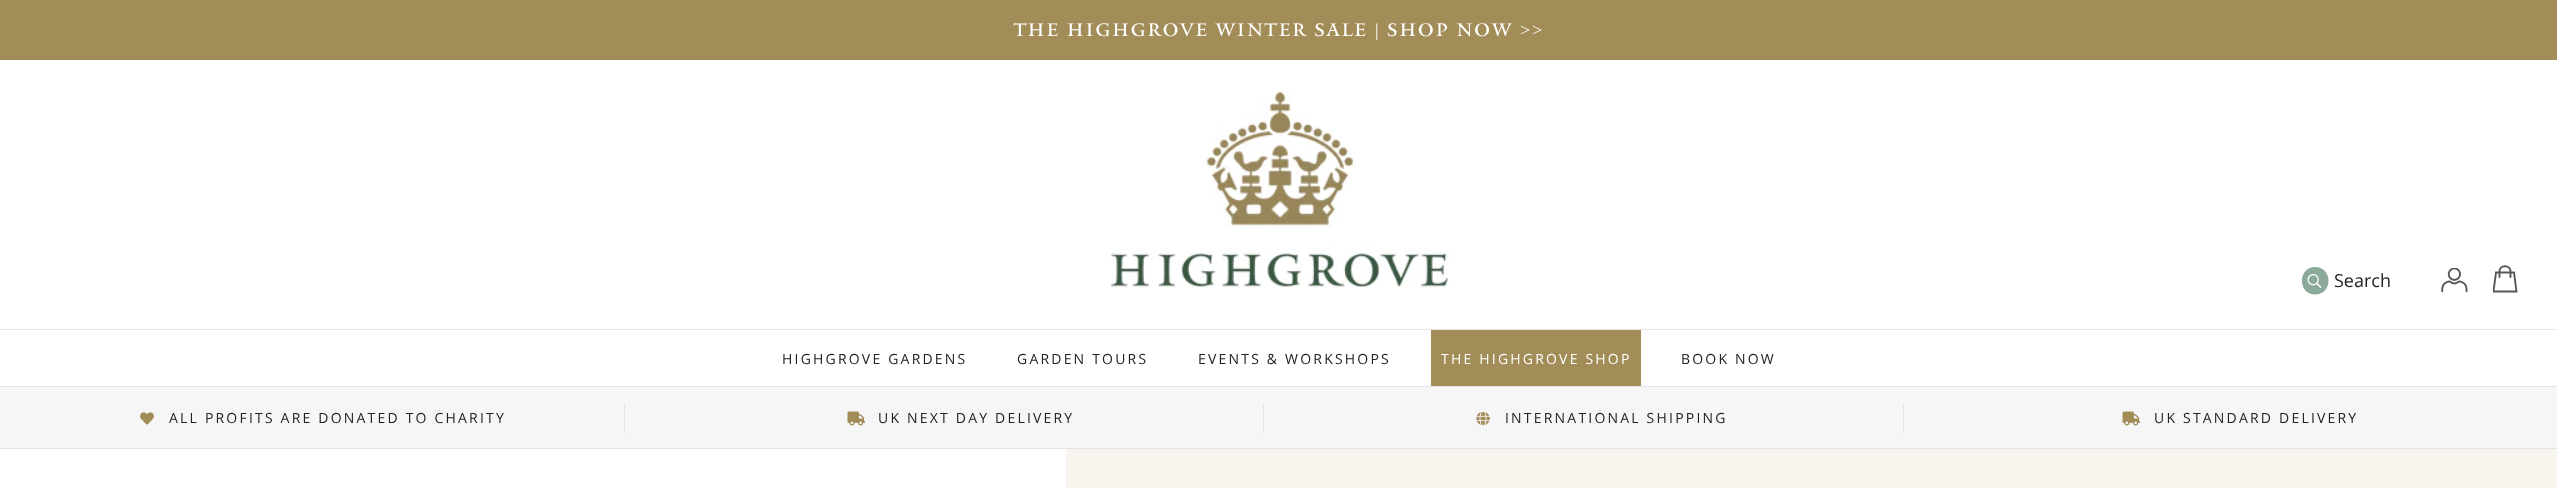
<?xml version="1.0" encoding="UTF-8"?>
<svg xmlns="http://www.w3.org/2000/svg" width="2557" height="488">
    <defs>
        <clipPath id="clip1"><rect x="2493" y="265" width="25" height="28"/></clipPath>
    </defs>
    <rect width="100%" height="100%" fill="#FFFFFF"/>
    <rect x="0" y="0" width="2557" height="60" fill="#A28D58"/>
    <text x="1014" y="36" font-family="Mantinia" font-size="18" letter-spacing="1.8" fill="#FFFFFF">THE HIGHGROVE WINTER SALE</text>
    <text x="1375" y="36" font-family="Liberation Serif" font-size="18" letter-spacing="1.8" fill="#FFFFFF">|</text>
    <text x="1387" y="36" font-family="Mantinia" font-size="18" letter-spacing="1.8" fill="#FFFFFF">SHOP NOW</text>
    <text x="1520" y="36" font-family="Liberation Serif" font-size="18" letter-spacing="1.8" fill="#FFFFFF">&gt;&gt;</text>
    <image x="1111" y="88" width="339" height="200" href="img_01.png"/>
    <path d="M 2315 267 C 2297.5 267 2297.5 294.5 2315 294.5 C 2333 294.5 2333 267 2315 267 Z" fill="#8BAA99"/>
    <image x="2307" y="274" width="15" height="14" href="img_02.png"/>
    <text x="2334" y="287" font-family="Open Sans" font-size="18" fill="#222222">Search</text>
    <image x="2441" y="268" width="27" height="25" href="img_03.png"/>
    <g clip-path="url(#clip1)">
        <path d="M 2496 272.5 L 2493.5 291.5 H 2516.5 L 2514 272.5 Z M 2510.5 271.5 C 2510.5 264.5 2499.5 264.5 2499.5 271.5" fill="none" stroke="#545759" stroke-width="1.9"/>
    </g>
    <path d="M 2499.5 273 V 277 M 2510.5 273 V 277" fill="none" stroke="#545759" stroke-width="1.9" stroke-linecap="round"/>
    <rect x="0" y="329" width="2557" height="1" fill="#E4E4E4"/>
    <text x="782" y="364" font-family="Open Sans" font-size="14" letter-spacing="2.2" fill="#222222">HIGHGROVE GARDENS</text>
    <text x="1017" y="364" font-family="Open Sans" font-size="14" letter-spacing="2.2" fill="#222222">GARDEN TOURS</text>
    <text x="1198" y="364" font-family="Open Sans" font-size="14" letter-spacing="2.2" fill="#222222">EVENTS &amp; WORKSHOPS</text>
    <rect x="1431" y="330" width="210" height="56" fill="#A28D58"/>
    <text x="1441" y="364" font-family="Open Sans" font-size="14" letter-spacing="2.2" fill="#FFFFFF">THE HIGHGROVE SHOP</text>
    <text x="1681" y="364" font-family="Open Sans" font-size="14" letter-spacing="2.2" fill="#222222">BOOK NOW</text>
    <rect x="0" y="387" width="2557" height="61" fill="#F6F6F6"/>
    <rect x="0" y="386" width="2557" height="1" fill="#E4E4E4"/>
    <rect x="0" y="448" width="2557" height="1" fill="#E4E4E4"/>
    <rect x="624" y="403" width="1" height="30" fill="#E4E4E4"/>
    <image x="140" y="412" width="14" height="13" href="img_04.png"/>
    <text x="169" y="423" font-family="Open Sans" font-size="14" letter-spacing="2.2" fill="#222222">ALL PROFITS ARE DONATED TO CHARITY</text>
    <rect x="1263" y="403" width="1" height="30" fill="#E4E4E4"/>
    <image x="847" y="411" width="18" height="15" href="img_05.png"/>
    <text x="878" y="423" font-family="Open Sans" font-size="14" letter-spacing="2.2" fill="#222222">UK NEXT DAY DELIVERY</text>
    <rect x="1903" y="403" width="1" height="30" fill="#E4E4E4"/>
    <image x="1476" y="411" width="14" height="15" href="img_06.png"/>
    <text x="1505" y="423" font-family="Open Sans" font-size="14" letter-spacing="2.2" fill="#222222">INTERNATIONAL SHIPPING</text>
    <image x="2122" y="411" width="18" height="15" href="img_05.png"/>
    <text x="2154" y="423" font-family="Open Sans" font-size="14" letter-spacing="2.2" fill="#222222">UK STANDARD DELIVERY</text>
    <rect x="1066" y="449" width="1491" height="39" fill="#F8F5EE"/>
</svg>
